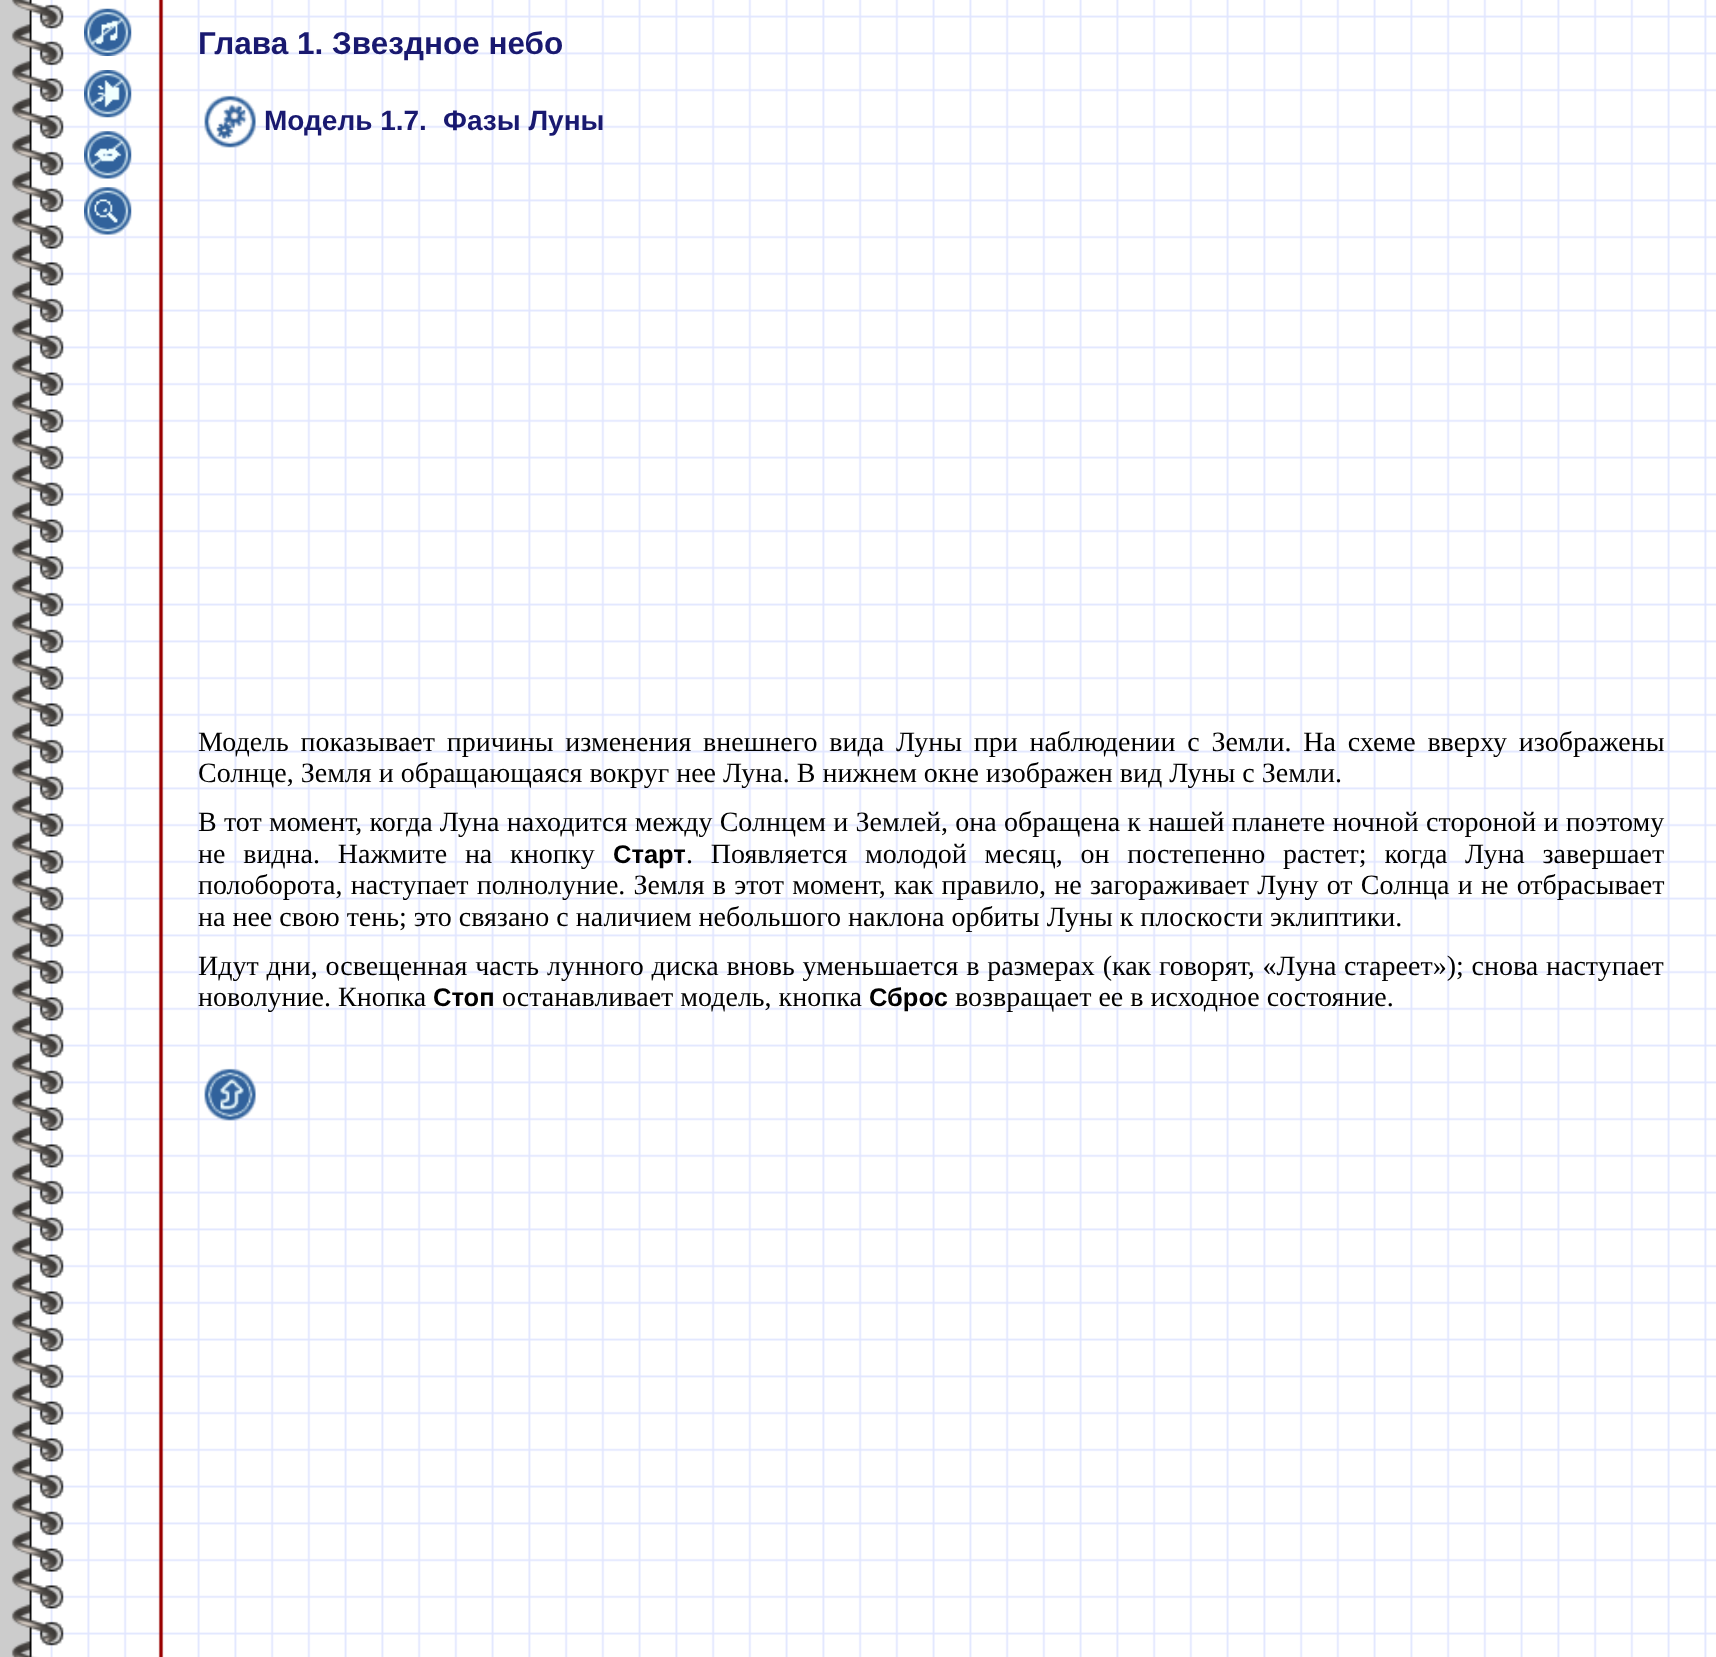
<?xml version="1.0" encoding="UTF-8"?>
<svg xmlns="http://www.w3.org/2000/svg" width="1716" height="1657">
    <rect width="100%" height="100%" fill="#FFFFFF"/>
    <image x="0" y="0" width="1716" height="1657" href="img_01.png"/>
    <image x="84" y="8" width="48" height="48" href="img_02.png"/>
    <text x="198" y="54" font-family="Liberation Sans" font-size="31.5" font-weight="700" fill="#191970">Глава 1. Звездное небо</text>
    <image x="204" y="95" width="52" height="53" href="img_03.png"/>
    <text x="264" y="130" font-family="Liberation Sans" font-size="28" font-weight="700" fill="#191970">Модель 1.7.</text>
    <text x="443" y="130" font-family="Liberation Sans" font-size="28" font-weight="700" fill="#191970">Фазы Луны</text>
    <image x="84" y="70" width="48" height="48" href="img_04.png"/>
    <image x="84" y="131" width="48" height="48" href="img_05.png"/>
    <image x="84" y="187" width="48" height="48" href="img_06.png"/>
    <text font-family="Liberation Serif" font-size="28" fill="#000000">
        <tspan x="198" y="751" word-spacing="4.75">Модель показывает причины изменения внешнего вида Луны при наблюдении с Земли. На схеме вверху изображены</tspan>
        <tspan x="198" y="782">Солнце, Земля и обращающаяся вокруг нее Луна. В нижнем окне изображен вид Луны с Земли.</tspan>
        <tspan x="198" y="831" word-spacing="0.25">В тот момент, когда Луна находится между Солнцем и Землей, она обращена к нашей планете ночной стороной и поэтому</tspan>
        <tspan x="198" y="863" word-spacing="10.75">не видна. Нажмите на кнопку</tspan>
    </text>
    <text x="613" y="863" font-family="Liberation Sans" font-size="25.5" font-weight="700" fill="#000000">Старт</text>
    <text x="686" y="863" word-spacing="10.75" font-family="Liberation Serif" font-size="28" fill="#000000">. Появляется молодой месяц, он постепенно растет; когда Луна завершает</text>
    <text font-family="Liberation Serif" font-size="28" fill="#000000">
        <tspan x="198" y="894" word-spacing="1.25">полоборота, наступает полнолуние. Земля в этот момент, как правило, не загораживает Луну от Солнца и не отбрасывает</tspan>
        <tspan x="198" y="926">на нее свою тень; это связано с наличием небольшого наклона орбиты Луны к плоскости эклиптики.</tspan>
        <tspan x="198" y="975" word-spacing="0.8">Идут дни, освещенная часть лунного диска вновь уменьшается в размерах (как говорят, «Луна стареет»); снова наступает</tspan>
        <tspan x="198" y="1006">новолуние. Кнопка</tspan>
    </text>
    <text x="433" y="1006" font-family="Liberation Sans" font-size="25.5" font-weight="700" fill="#000000">Стоп</text>
    <text x="502" y="1006" font-family="Liberation Serif" font-size="28" fill="#000000">останавливает модель, кнопка</text>
    <text x="869" y="1006" font-family="Liberation Sans" font-size="25.5" font-weight="700" fill="#000000">Сброс</text>
    <text x="955" y="1006" font-family="Liberation Serif" font-size="28" fill="#000000">возвращает ее в исходное состояние.</text>
    <image x="204" y="1068" width="52" height="53" href="img_07.png"/>
</svg>
